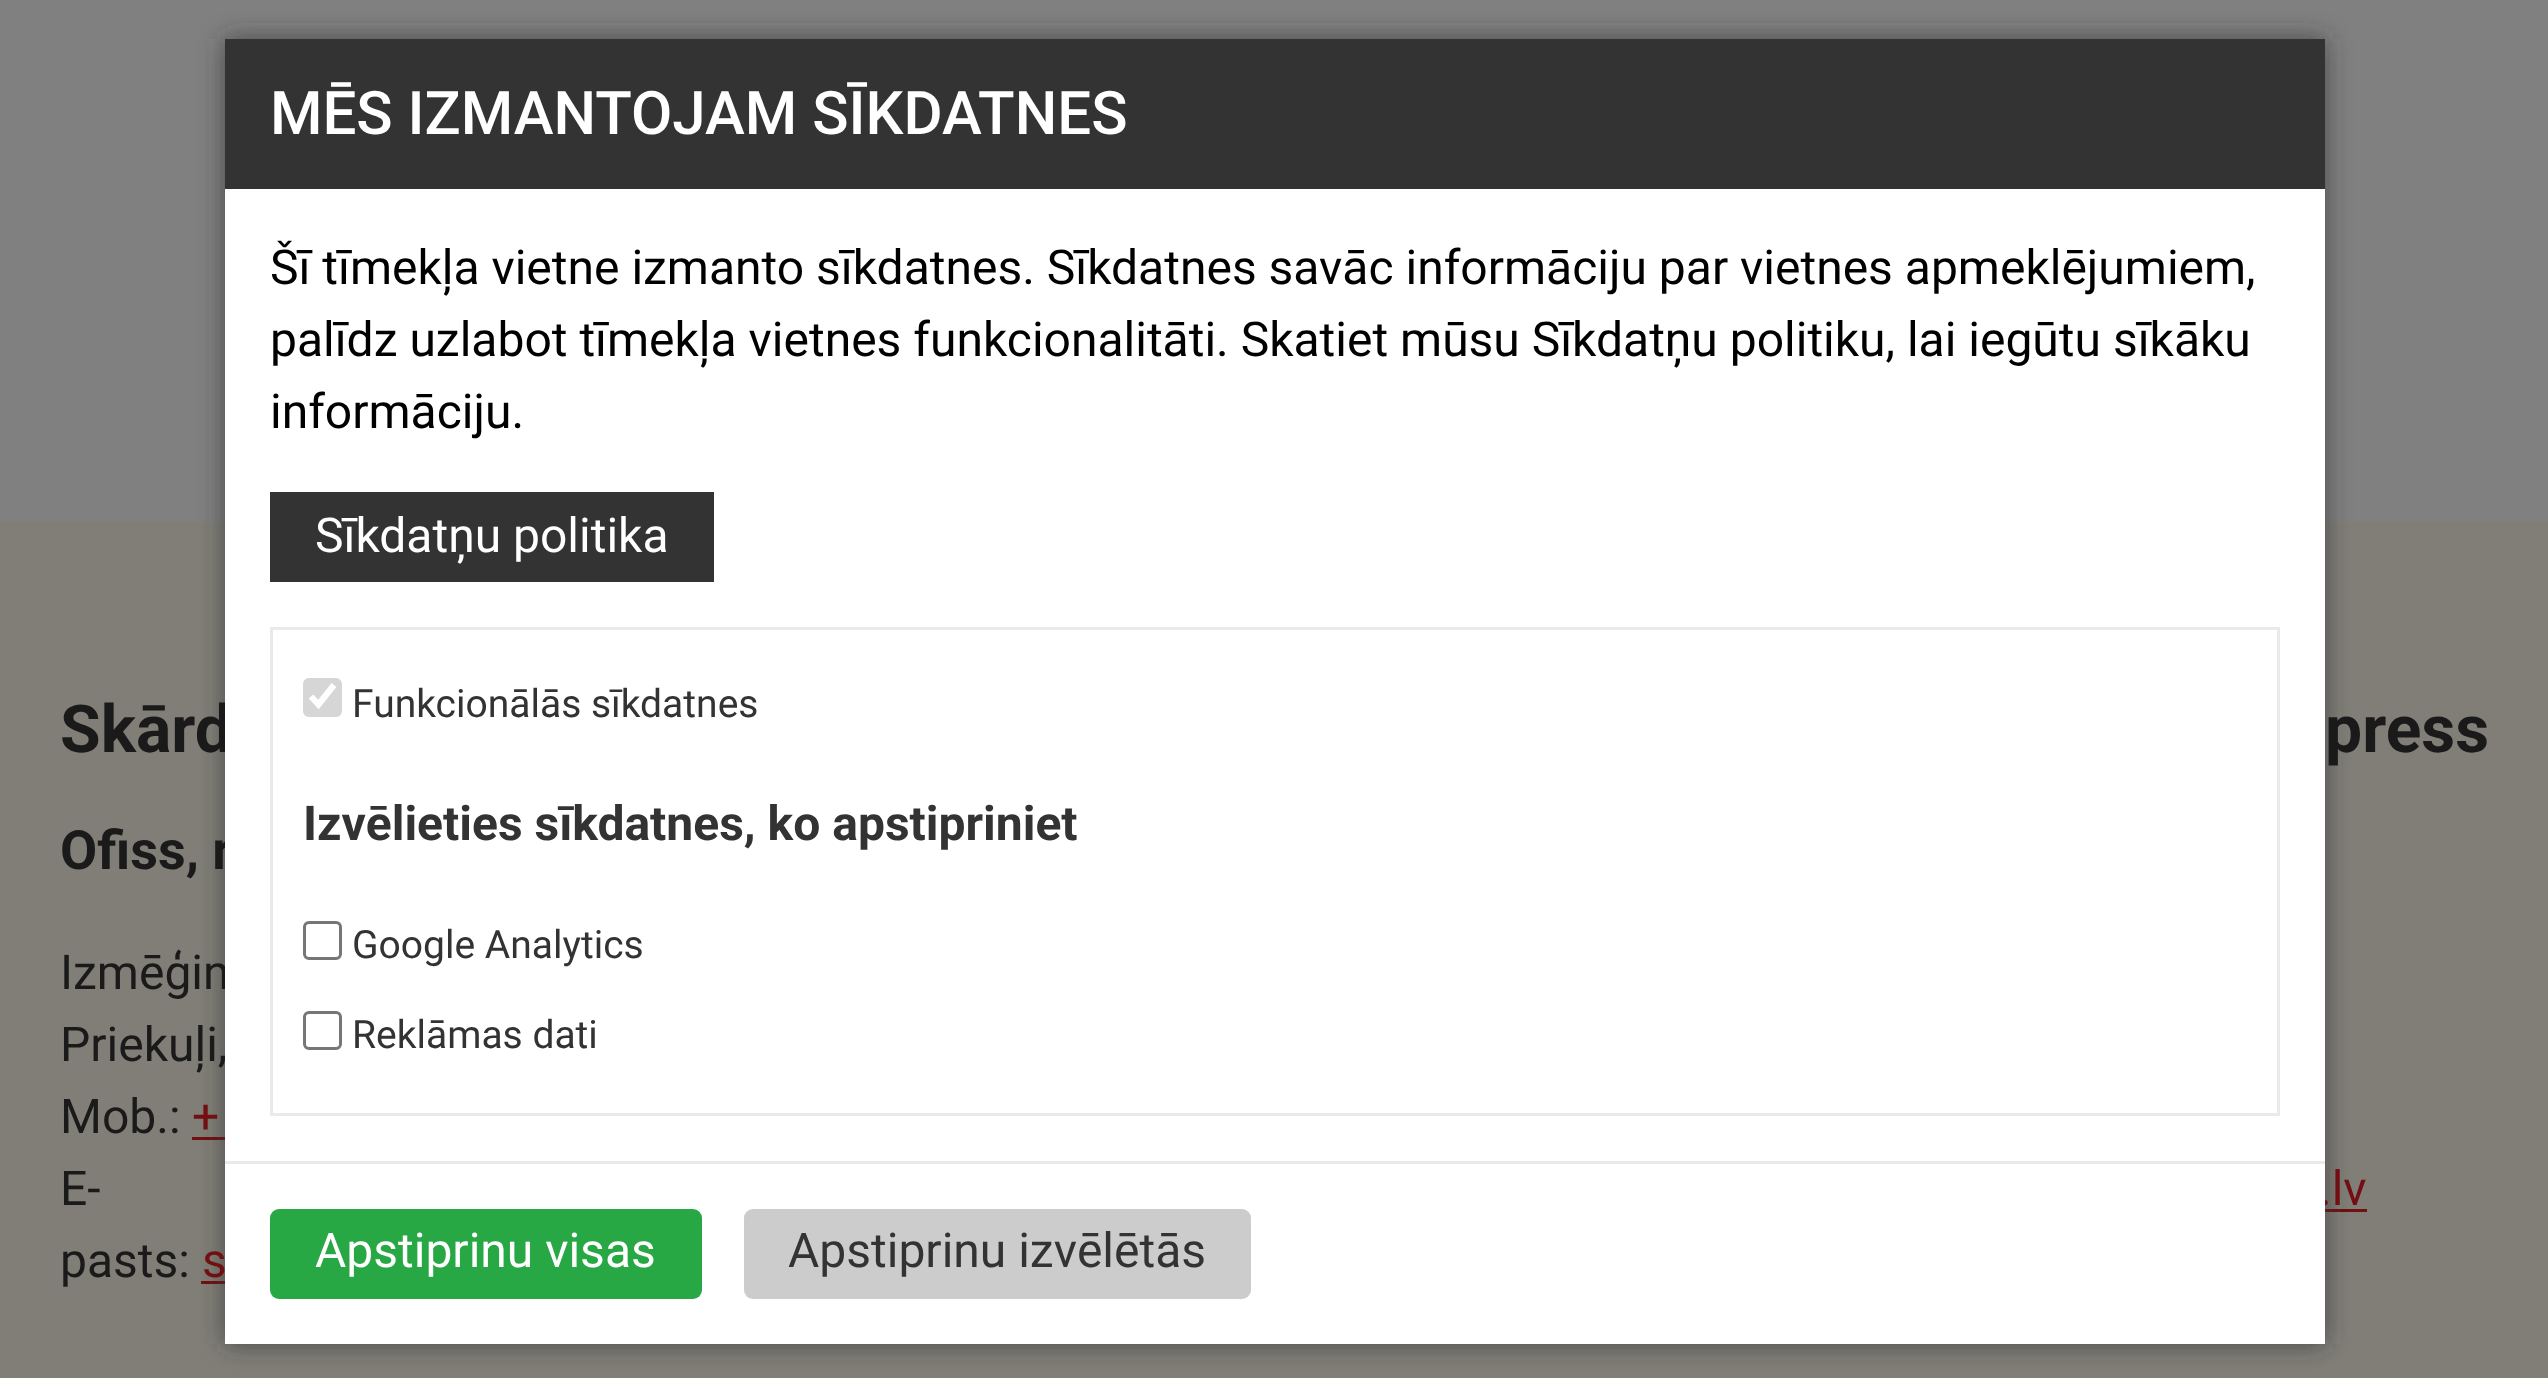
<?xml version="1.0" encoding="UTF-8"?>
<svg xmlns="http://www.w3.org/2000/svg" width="2548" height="1378">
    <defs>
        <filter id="blur1" x="-50%" y="-200%" width="200%" height="500%"><feGaussianBlur stdDeviation="12"/></filter>
    </defs>
    <rect width="100%" height="100%" fill="#808080"/>
    <rect x="0" y="522" width="2548" height="856" fill="#807E77"/>
    <rect x="192" y="1137" width="33" height="3" fill="#720F12"/>
    <rect x="201" y="1281" width="24" height="3" fill="#720F12"/>
    <rect x="2325" y="1209" width="42" height="3" fill="#720F12"/>
    <rect x="225" y="39" width="2100" height="1305" fill="#323232" fill-opacity="0.75" filter="url(#blur1)"/>
    <text x="60" y="752" font-family="Roboto" font-size="66" font-weight="700" fill="#1A1A1A">Skārd</text>
    <text x="60" y="869" font-family="Roboto" font-size="54" font-weight="700" fill="#1A1A1A">Ofiss, r</text>
    <text font-family="Roboto" font-size="48" fill="#1A1A1A">
        <tspan x="60" y="989">Izmēģin</tspan>
        <tspan x="60" y="1061">Priekuļi,</tspan>
    </text>
    <text x="2319" y="1205" font-family="Roboto" font-size="48" fill="#720F12">.lv</text>
    <rect x="225" y="189" width="2100" height="1155" fill="#FFFFFF"/>
    <rect x="225" y="39" width="2100" height="150" fill="#333333"/>
    <text x="270" y="134" font-family="Roboto" font-size="60" font-weight="500" fill="#FFFFFF">MĒS IZMANTOJAM SĪKDATNES</text>
    <text font-family="Roboto" font-size="48" fill="#000000">
        <tspan x="270" y="284">Šī tīmekļa vietne izmanto sīkdatnes. Sīkdatnes savāc informāciju par vietnes apmeklējumiem,</tspan>
        <tspan x="270" y="356">palīdz uzlabot tīmekļa vietnes funkcionalitāti. Skatiet mūsu Sīkdatņu politiku, lai iegūtu sīkāku</tspan>
        <tspan x="270" y="428">informāciju.</tspan>
    </text>
    <rect x="270" y="492" width="444" height="90" fill="#333333"/>
    <text x="315" y="552" font-family="Roboto" font-size="48" fill="#FFFFFF">Sīkdatņu politika</text>
    <rect x="271.5" y="628.5" width="2007" height="486" fill="none" stroke="#EAEAEA" stroke-width="3"/>
    <rect x="303" y="678" width="39" height="39" rx="6" fill="#D6D6D6"/>
    <path d="M 311 696.5 L 318.5 704.5 L 334 685" fill="none" stroke="#FFFFFF" stroke-width="6.2"/>
    <text x="352" y="717" font-family="Roboto" font-size="39" fill="#333333">Funkcionālās sīkdatnes</text>
    <text x="303" y="840" font-family="Roboto" font-size="48" font-weight="700" fill="#333333">Izvēlieties sīkdatnes, ko apstipriniet</text>
    <rect x="304.5" y="922.5" width="36" height="36" rx="4.5" fill="none" stroke="#767676" stroke-width="3"/>
    <text x="352" y="958" font-family="Roboto" font-size="39" fill="#333333">Google Analytics</text>
    <rect x="304.5" y="1012.5" width="36" height="36" rx="4.5" fill="none" stroke="#767676" stroke-width="3"/>
    <text x="352" y="1048" font-family="Roboto" font-size="39" fill="#333333">Reklāmas dati</text>
    <rect x="225" y="1161" width="2100" height="3" fill="#EAEAEA"/>
    <rect x="270" y="1209" width="432" height="90" rx="9" fill="#28A745"/>
    <text x="315" y="1267" font-family="Roboto" font-size="48" fill="#FFFFFF">Apstiprinu visas</text>
    <rect x="744" y="1209" width="507" height="90" rx="9" fill="#CCCCCC"/>
    <text x="788" y="1267" font-family="Roboto" font-size="48" fill="#333333">Apstiprinu izvēlētās</text>
    <text x="60" y="1133" font-family="Roboto" font-size="48" fill="#1A1A1A">Mob.:</text>
    <text x="192" y="1133" font-family="Roboto" font-size="48" fill="#720F12">+</text>
    <text font-family="Roboto" font-size="48" fill="#1A1A1A">
        <tspan x="60" y="1205">E-</tspan>
        <tspan x="60" y="1277">pasts:</tspan>
    </text>
    <text x="202" y="1277" font-family="Roboto" font-size="48" fill="#720F12">s</text>
    <text x="2325" y="752" font-family="Roboto" font-size="66" font-weight="700" fill="#1A1A1A">press</text>
</svg>
